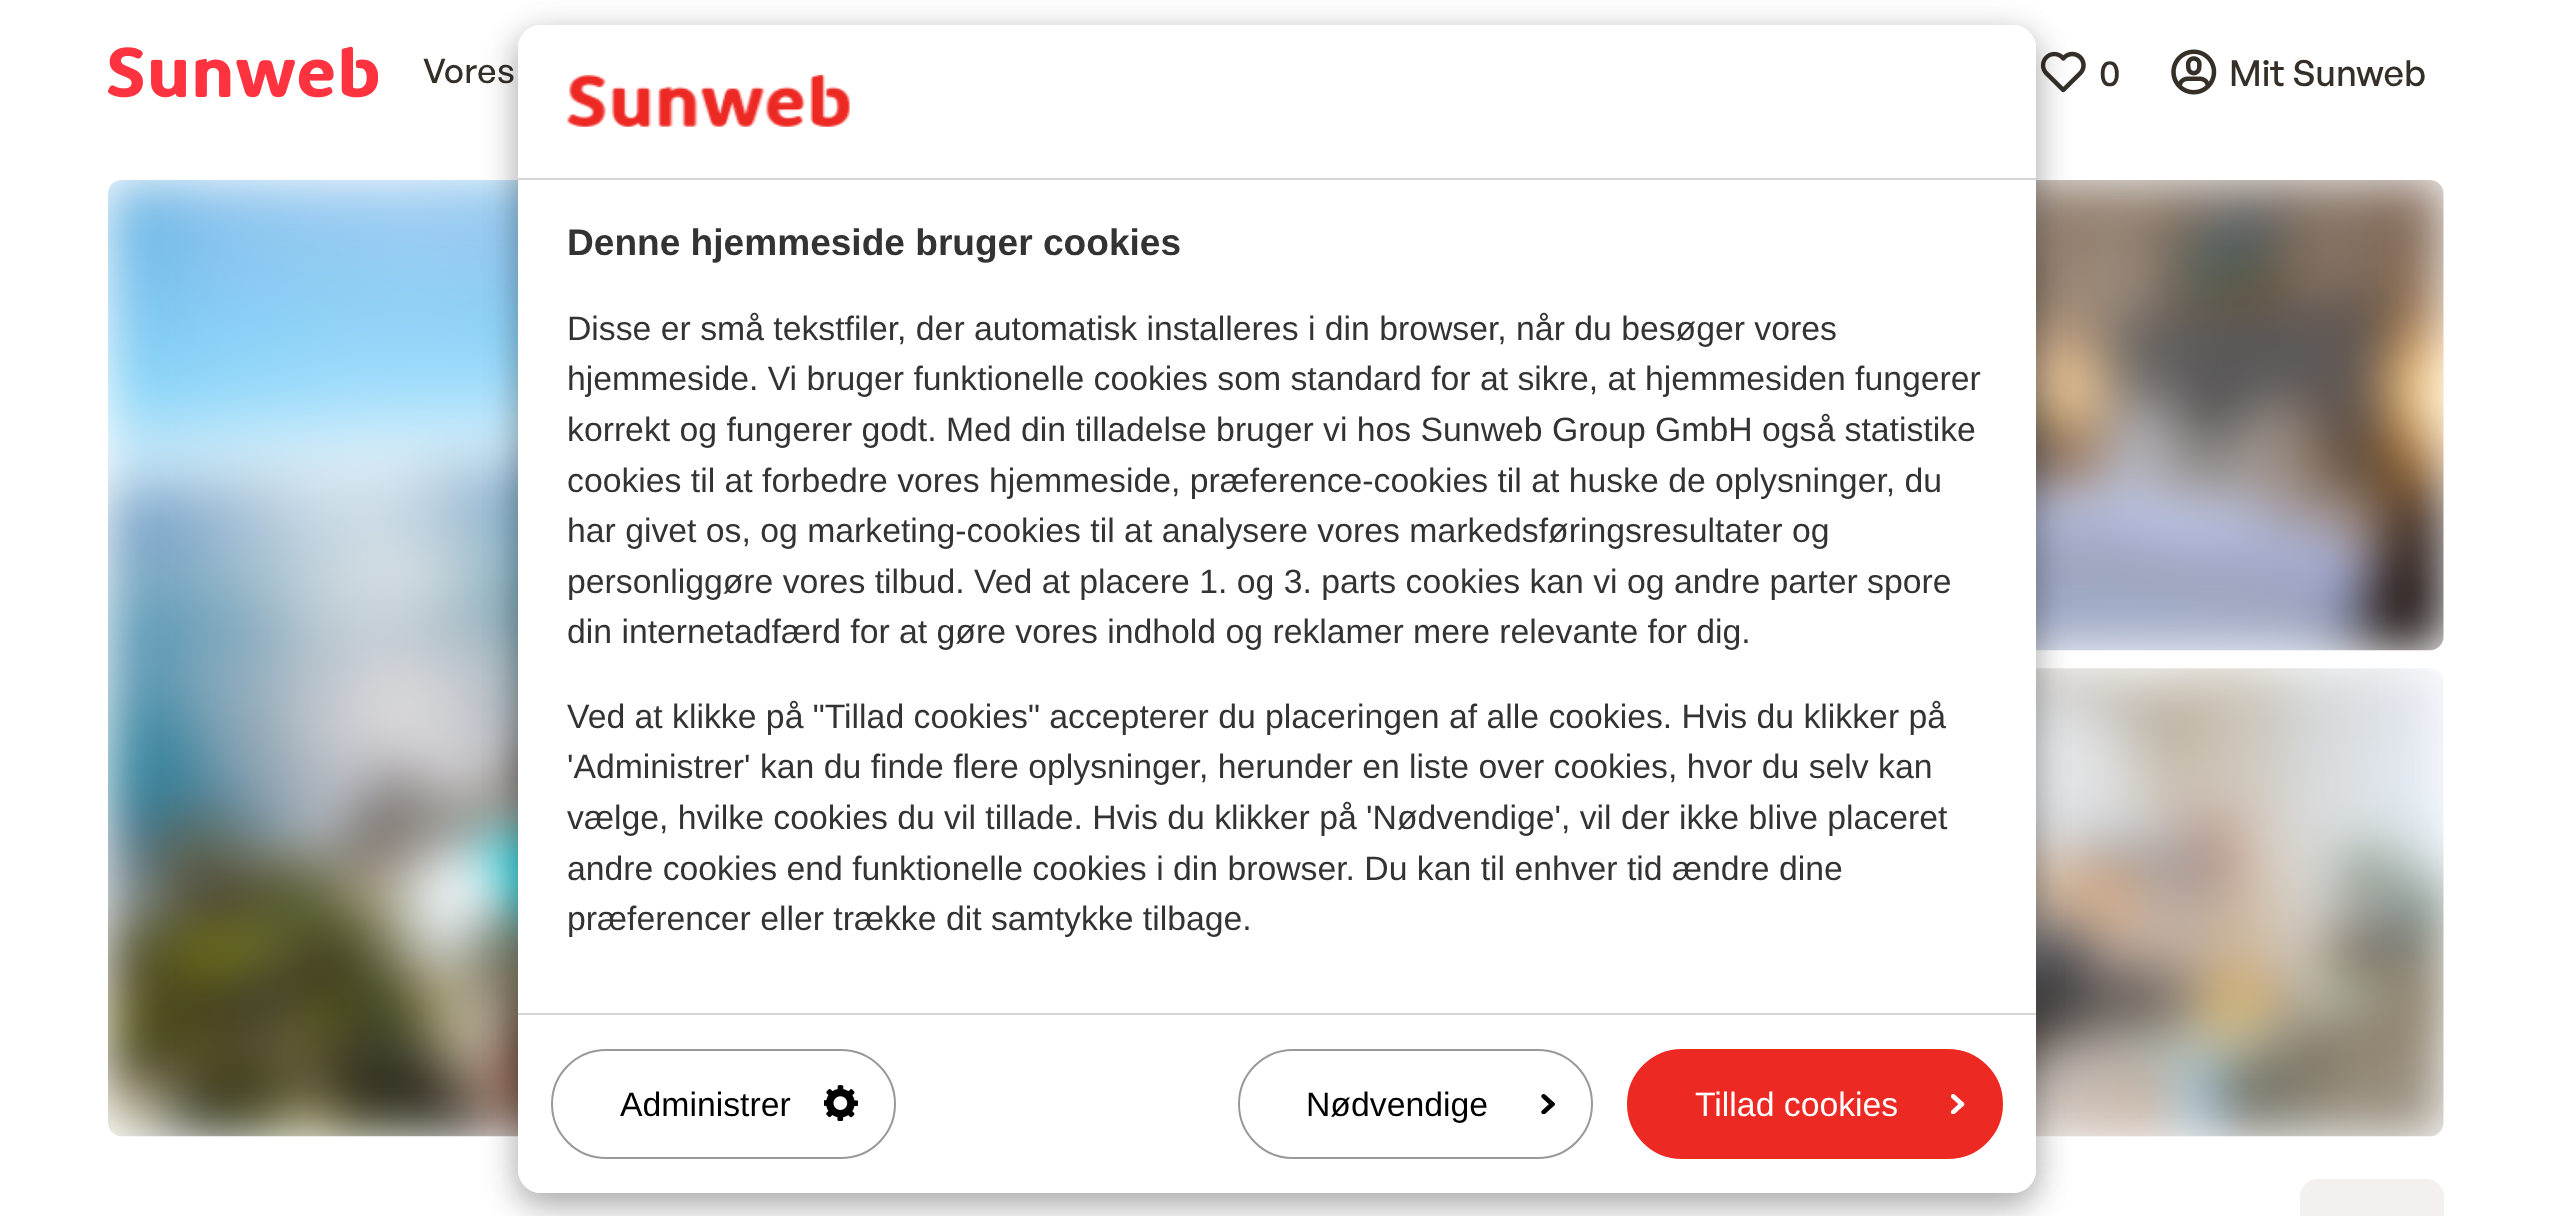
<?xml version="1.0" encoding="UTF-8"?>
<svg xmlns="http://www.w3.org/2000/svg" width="2550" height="1216">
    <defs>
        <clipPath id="clip1"><path d="M 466 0 H 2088 V 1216 H 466 Z M 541 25 H 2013 C 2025.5 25 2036 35.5 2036 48 V 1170 C 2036 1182.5 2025.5 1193 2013 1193 H 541 C 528.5 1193 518 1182.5 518 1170 V 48 C 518 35.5 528.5 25 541 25 Z" clip-rule="evenodd"/></clipPath>
        <filter id="blur1" x="-50%" y="-200%" width="200%" height="500%"><feGaussianBlur stdDeviation="17"/></filter>
    </defs>
    <rect width="100%" height="100%" fill="#FFFFFF"/>
    <image x="108" y="46" width="270" height="52" href="img_01.png"/>
    <text x="423" y="83" font-family="General Sans" font-size="33.75" font-weight="500" letter-spacing="0.5" fill="#352F28">Vores</text>
    <image x="2040" y="51" width="46" height="42" href="img_02.png"/>
    <text x="2099" y="86" font-family="General Sans" font-size="36" font-weight="500" fill="#352F28">0</text>
    <image x="2171" y="49" width="46" height="46" href="img_03.png"/>
    <text x="2229" y="86" font-family="General Sans" font-size="36" font-weight="500" fill="#352F28">Mit Sunweb</text>
    <image x="108" y="180" width="410" height="957" href="img_04.png"/>
    <image x="2036" y="180" width="408" height="471" href="img_05.png"/>
    <image x="2036" y="668" width="408" height="469" href="img_06.png"/>
    <rect x="2300" y="1179" width="144" height="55" rx="18" fill="#F3F0ED"/>
    <g clip-path="url(#clip1)">
        <rect x="518" y="36" width="1518" height="1168" rx="23" fill="#000000" fill-opacity="0.19" filter="url(#blur1)"/>
        <rect x="518" y="36" width="1518" height="1168" rx="23" fill="#000000" fill-opacity="0.2" filter="url(#blur1)"/>
    </g>
    <path d="M 541 25 H 2013 C 2025.5 25 2036 35.5 2036 48 V 180 H 518 V 48 C 518 35.5 528.5 25 541 25 Z" fill="#FFFFFF"/>
    <rect x="518" y="178" width="1518" height="2" fill="#D6D6D6"/>
    <image x="567" y="74" width="283" height="53" href="img_07.png"/>
    <rect x="2035" y="180" width="1" height="833" fill="#FFFFFF"/>
    <text x="567" y="255" font-family="Liberation Sans" font-size="37.1" font-weight="700" fill="#333333">Denne hjemmeside bruger cookies</text>
    <text font-family="Liberation Sans" font-size="33.75" fill="#333333">
        <tspan x="567" y="340">Disse er små tekstfiler, der automatisk installeres i din browser, når du besøger vores</tspan>
        <tspan x="567" y="390">hjemmeside. Vi bruger funktionelle cookies som standard for at sikre, at hjemmesiden fungerer</tspan>
        <tspan x="567" y="441">korrekt og fungerer godt. Med din tilladelse bruger vi hos Sunweb Group GmbH også statistike</tspan>
        <tspan x="567" y="492">cookies til at forbedre vores hjemmeside, præference-cookies til at huske de oplysninger, du</tspan>
        <tspan x="567" y="542">har givet os, og marketing-cookies til at analysere vores markedsføringsresultater og</tspan>
        <tspan x="567" y="593">personliggøre vores tilbud. Ved at placere 1. og 3. parts cookies kan vi og andre parter spore</tspan>
        <tspan x="567" y="643">din internetadfærd for at gøre vores indhold og reklamer mere relevante for dig.</tspan>
    </text>
    <text font-family="Liberation Sans" font-size="33.75" fill="#333333">
        <tspan x="567" y="728">Ved at klikke på "Tillad cookies" accepterer du placeringen af alle cookies. Hvis du klikker på</tspan>
        <tspan x="567" y="778">'Administrer' kan du finde flere oplysninger, herunder en liste over cookies, hvor du selv kan</tspan>
        <tspan x="567" y="829">vælge, hvilke cookies du vil tillade. Hvis du klikker på 'Nødvendige', vil der ikke blive placeret</tspan>
        <tspan x="567" y="880">andre cookies end funktionelle cookies i din browser. Du kan til enhver tid ændre dine</tspan>
        <tspan x="567" y="930">præferencer eller trække dit samtykke tilbage.</tspan>
    </text>
    <path d="M 518 1013 H 2036 V 1170 C 2036 1182.5 2025.5 1193 2013 1193 H 541 C 528.5 1193 518 1182.5 518 1170 Z" fill="#FFFFFF"/>
    <rect x="518" y="1013" width="1518" height="2" fill="#D6D6D6"/>
    <rect x="552" y="1050" width="343" height="108" rx="54" fill="none" stroke="#999999" stroke-width="2"/>
    <text x="620" y="1116" font-family="Liberation Sans" font-size="33.75" fill="#000000">Administrer</text>
    <image x="824" y="1085" width="34" height="36" href="img_08.png"/>
    <rect x="1239" y="1050" width="353" height="108" rx="54" fill="none" stroke="#999999" stroke-width="2"/>
    <text x="1306" y="1116" font-family="Liberation Sans" font-size="33.75" fill="#000000">Nødvendige</text>
    <image x="1541" y="1094" width="14" height="20" href="img_09.png"/>
    <rect x="1628" y="1050" width="374" height="108" rx="54" fill="#ED2924" stroke="#ED2924" stroke-width="2"/>
    <text x="1695" y="1116" font-family="Liberation Sans" font-size="33.75" fill="#FFFFFF">Tillad cookies</text>
    <image x="1951" y="1094" width="14" height="20" href="img_10.png"/>
</svg>
